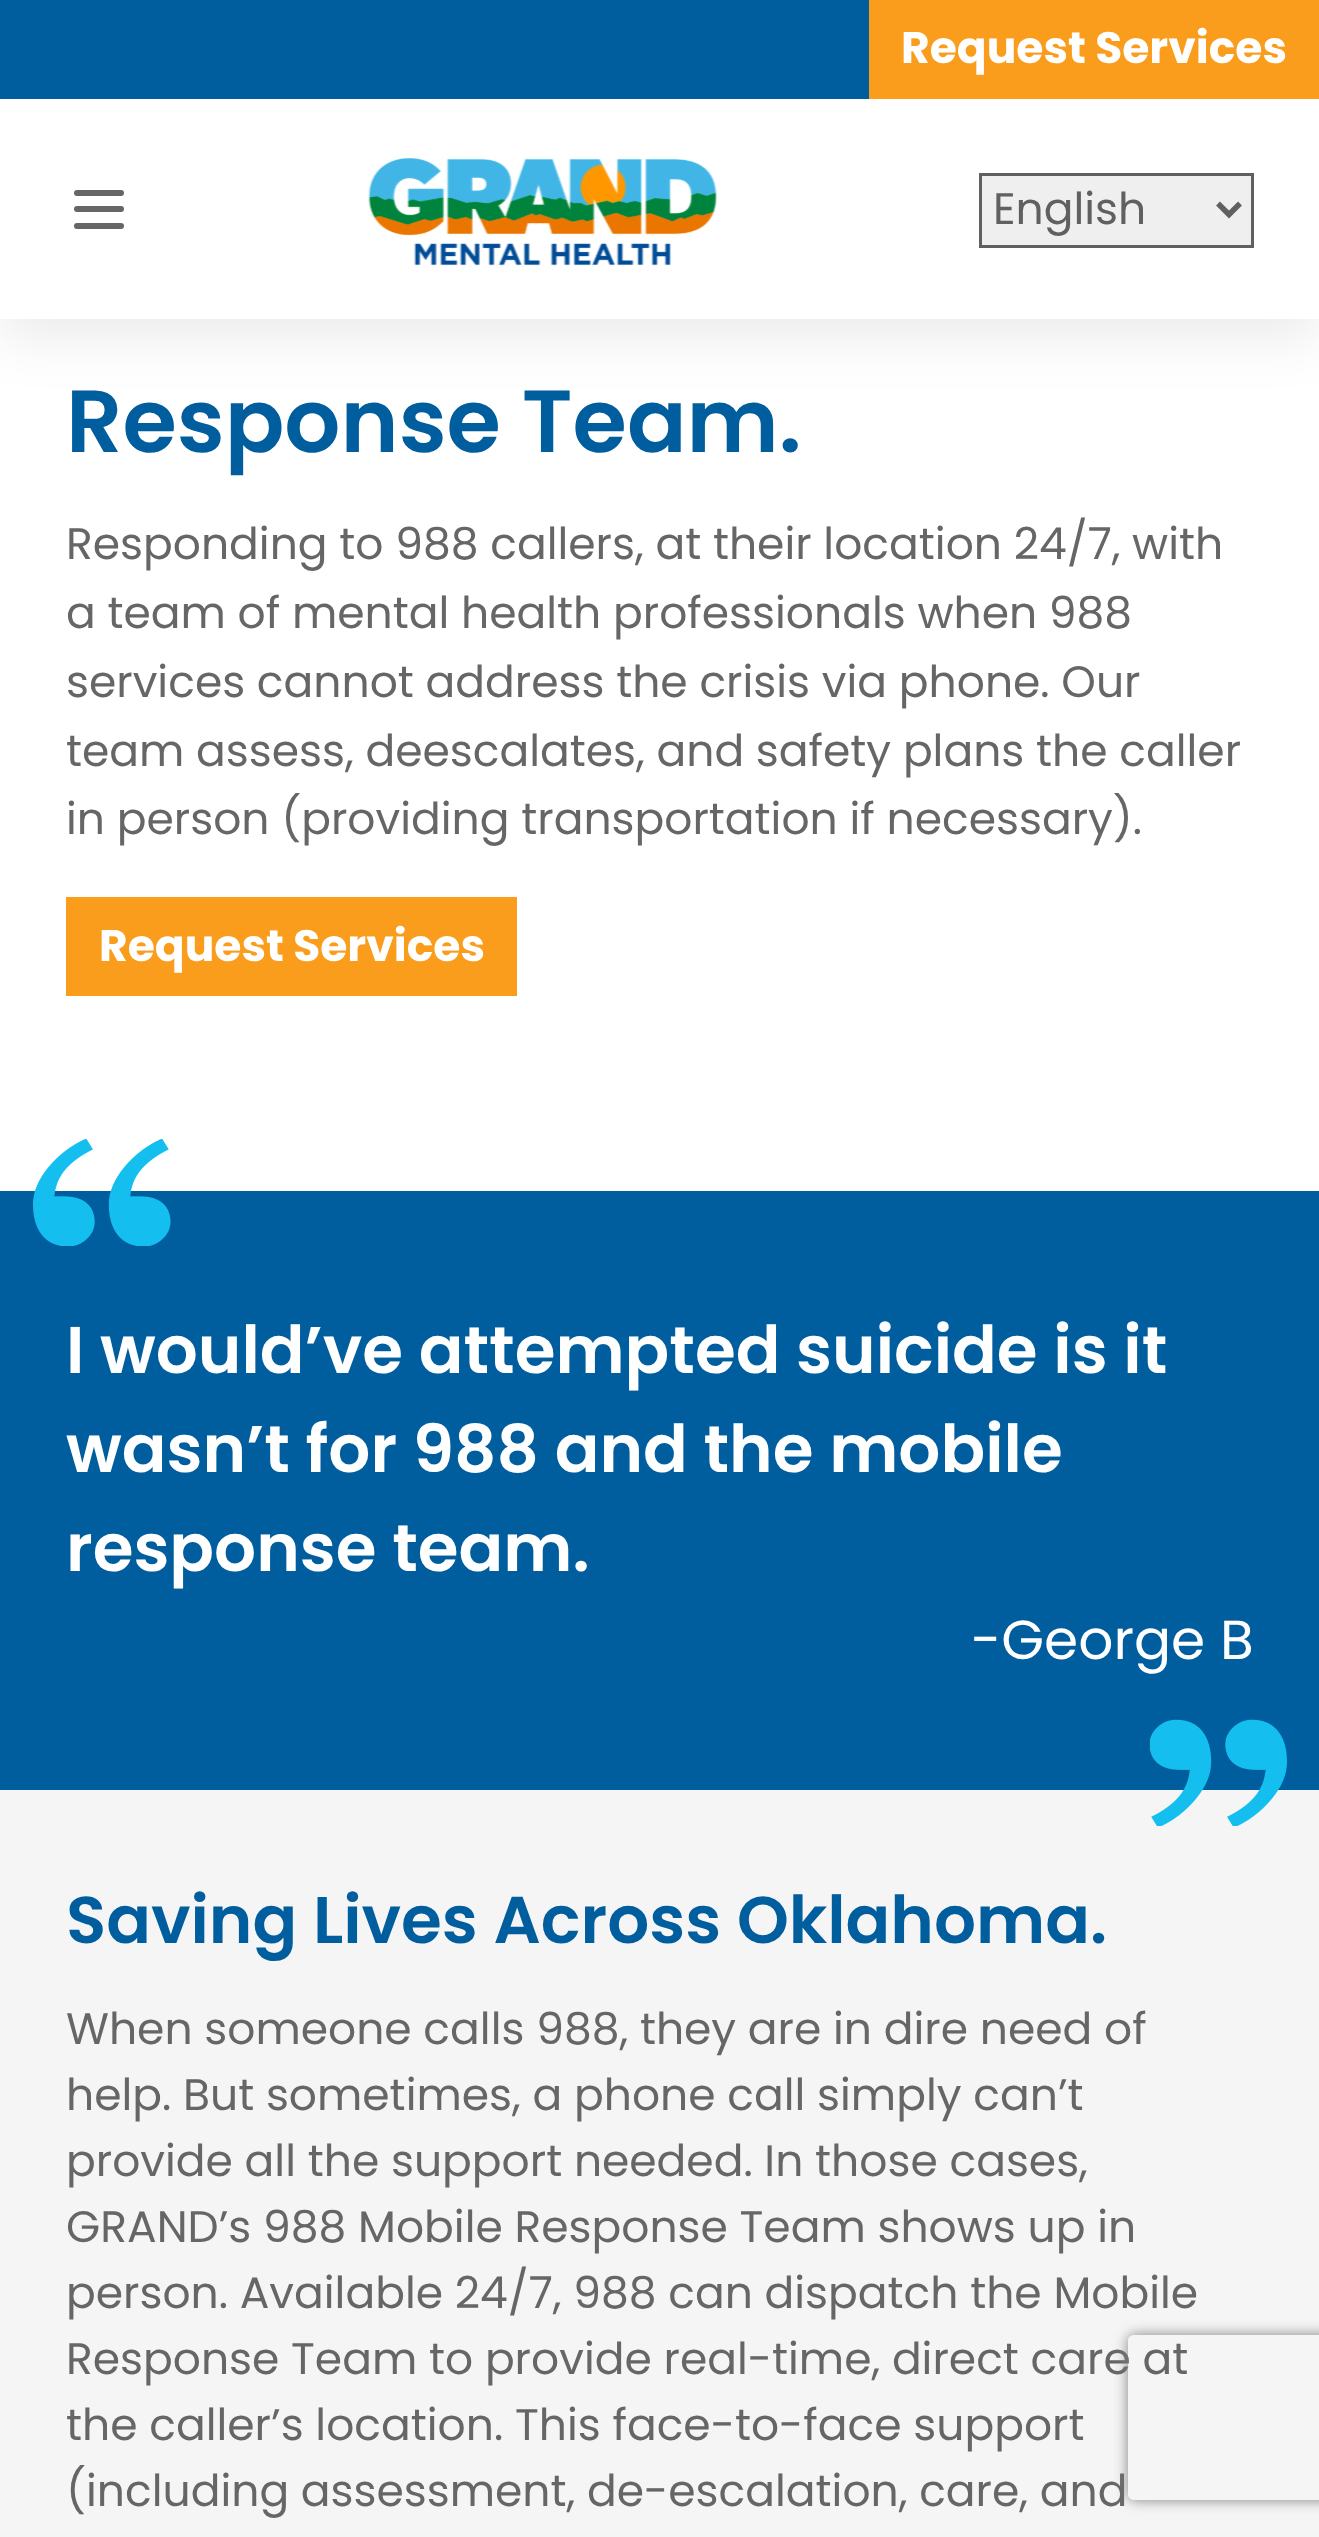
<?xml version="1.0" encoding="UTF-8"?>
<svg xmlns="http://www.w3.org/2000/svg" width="1319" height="2537">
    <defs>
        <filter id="blur1" x="-50%" y="-200%" width="200%" height="500%"><feGaussianBlur stdDeviation="27.5"/></filter>
        <clipPath id="clip1"><path d="M 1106 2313 H 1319 V 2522 H 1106 Z M 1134 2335 H 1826 C 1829.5 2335 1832 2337.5 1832 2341 V 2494 C 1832 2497.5 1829.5 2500 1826 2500 H 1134 C 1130.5 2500 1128 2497.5 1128 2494 V 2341 C 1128 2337.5 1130.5 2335 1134 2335 Z" clip-rule="evenodd"/></clipPath>
        <filter id="blur2" x="-50%" y="-200%" width="200%" height="500%"><feGaussianBlur stdDeviation="7"/></filter>
    </defs>
    <rect width="100%" height="100%" fill="#FFFFFF"/>
    <rect x="0" y="19" width="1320" height="319" fill="#000000" fill-opacity="0.08" filter="url(#blur1)"/>
    <rect x="0" y="99" width="1319" height="220" fill="#FFFFFF"/>
    <rect x="0" y="0" width="869" height="99" fill="#005E9E"/>
    <rect x="869" y="0" width="450" height="99" fill="#FA9C1C"/>
    <text x="901" y="63" font-family="Poppins" font-size="44" font-weight="700" fill="#FFFFFF">Request Services</text>
    <rect x="74" y="190" width="50" height="6" rx="3" fill="#666666"/>
    <rect x="74" y="206" width="50" height="6" rx="3" fill="#666666"/>
    <rect x="74" y="223" width="50" height="6" rx="3" fill="#666666"/>
    <image x="368" y="157" width="349" height="109" href="img_01.png"/>
    <rect x="980.5" y="174.5" width="272" height="72" fill="#EFEFEF" stroke="#606060" stroke-width="3"/>
    <path d="M 1218 203.5 L 1229 214.5 L 1240 203.5" fill="none" stroke="#606060" stroke-width="5.5"/>
    <text x="993" y="224" font-family="Poppins" font-size="44" fill="#606060">English</text>
    <text x="66" y="452" font-family="Poppins" font-size="88" font-weight="600" fill="#005E9E">Response Team.</text>
    <text font-family="Poppins" font-size="44" fill="#666666">
        <tspan x="66" y="559">Responding to 988 callers, at their location 24/7, with</tspan>
        <tspan x="66" y="628">a team of mental health professionals when 988</tspan>
        <tspan x="66" y="697">services cannot address the crisis via phone. Our</tspan>
        <tspan x="66" y="766">team assess, deescalates, and safety plans the caller</tspan>
        <tspan x="66" y="834">in person (providing transportation if necessary).</tspan>
    </text>
    <rect x="66" y="897" width="451" height="99" fill="#FA9C1C"/>
    <text x="99" y="961" font-family="Poppins" font-size="44" font-weight="700" fill="#FFFFFF">Request Services</text>
    <rect x="0" y="1191" width="1319" height="599" fill="#005E9E"/>
    <image x="33" y="1139" width="138" height="107" href="img_02.png"/>
    <text font-family="Poppins" font-size="66" font-weight="600" fill="#FFFFFF">
        <tspan x="66" y="1373">I would’ve attempted suicide is it</tspan>
        <tspan x="66" y="1472">wasn’t for 988 and the mobile</tspan>
        <tspan x="66" y="1571">response team.</tspan>
    </text>
    <text x="971" y="1659" font-family="Poppins" font-size="55" fill="#FFFFFF">-George B</text>
    <rect x="0" y="1790" width="1319" height="747" fill="#F5F5F5"/>
    <image x="1150" y="1719" width="137" height="107" href="img_03.png"/>
    <text x="66" y="1943" font-family="Poppins" font-size="66" font-weight="600" fill="#005E9E">Saving Lives Across Oklahoma.</text>
    <text font-family="Poppins" font-size="44" fill="#666666">
        <tspan x="66" y="2044">When someone calls 988, they are in dire need of</tspan>
        <tspan x="66" y="2110">help. But sometimes, a phone call simply can’t</tspan>
        <tspan x="66" y="2176">provide all the support needed. In those cases,</tspan>
        <tspan x="66" y="2242">GRAND’s 988 Mobile Response Team shows up in</tspan>
        <tspan x="66" y="2308">person. Available 24/7, 988 can dispatch the Mobile</tspan>
        <tspan x="66" y="2374">Response Team to provide real-time, direct care at</tspan>
        <tspan x="66" y="2440">the caller’s location. This face-to-face support</tspan>
        <tspan x="66" y="2506">(including assessment, de-escalation, care, and</tspan>
    </text>
    <g clip-path="url(#clip1)">
        <rect x="1128" y="2335" width="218" height="165" rx="6" fill="#808080" filter="url(#blur2)"/>
    </g>
</svg>
